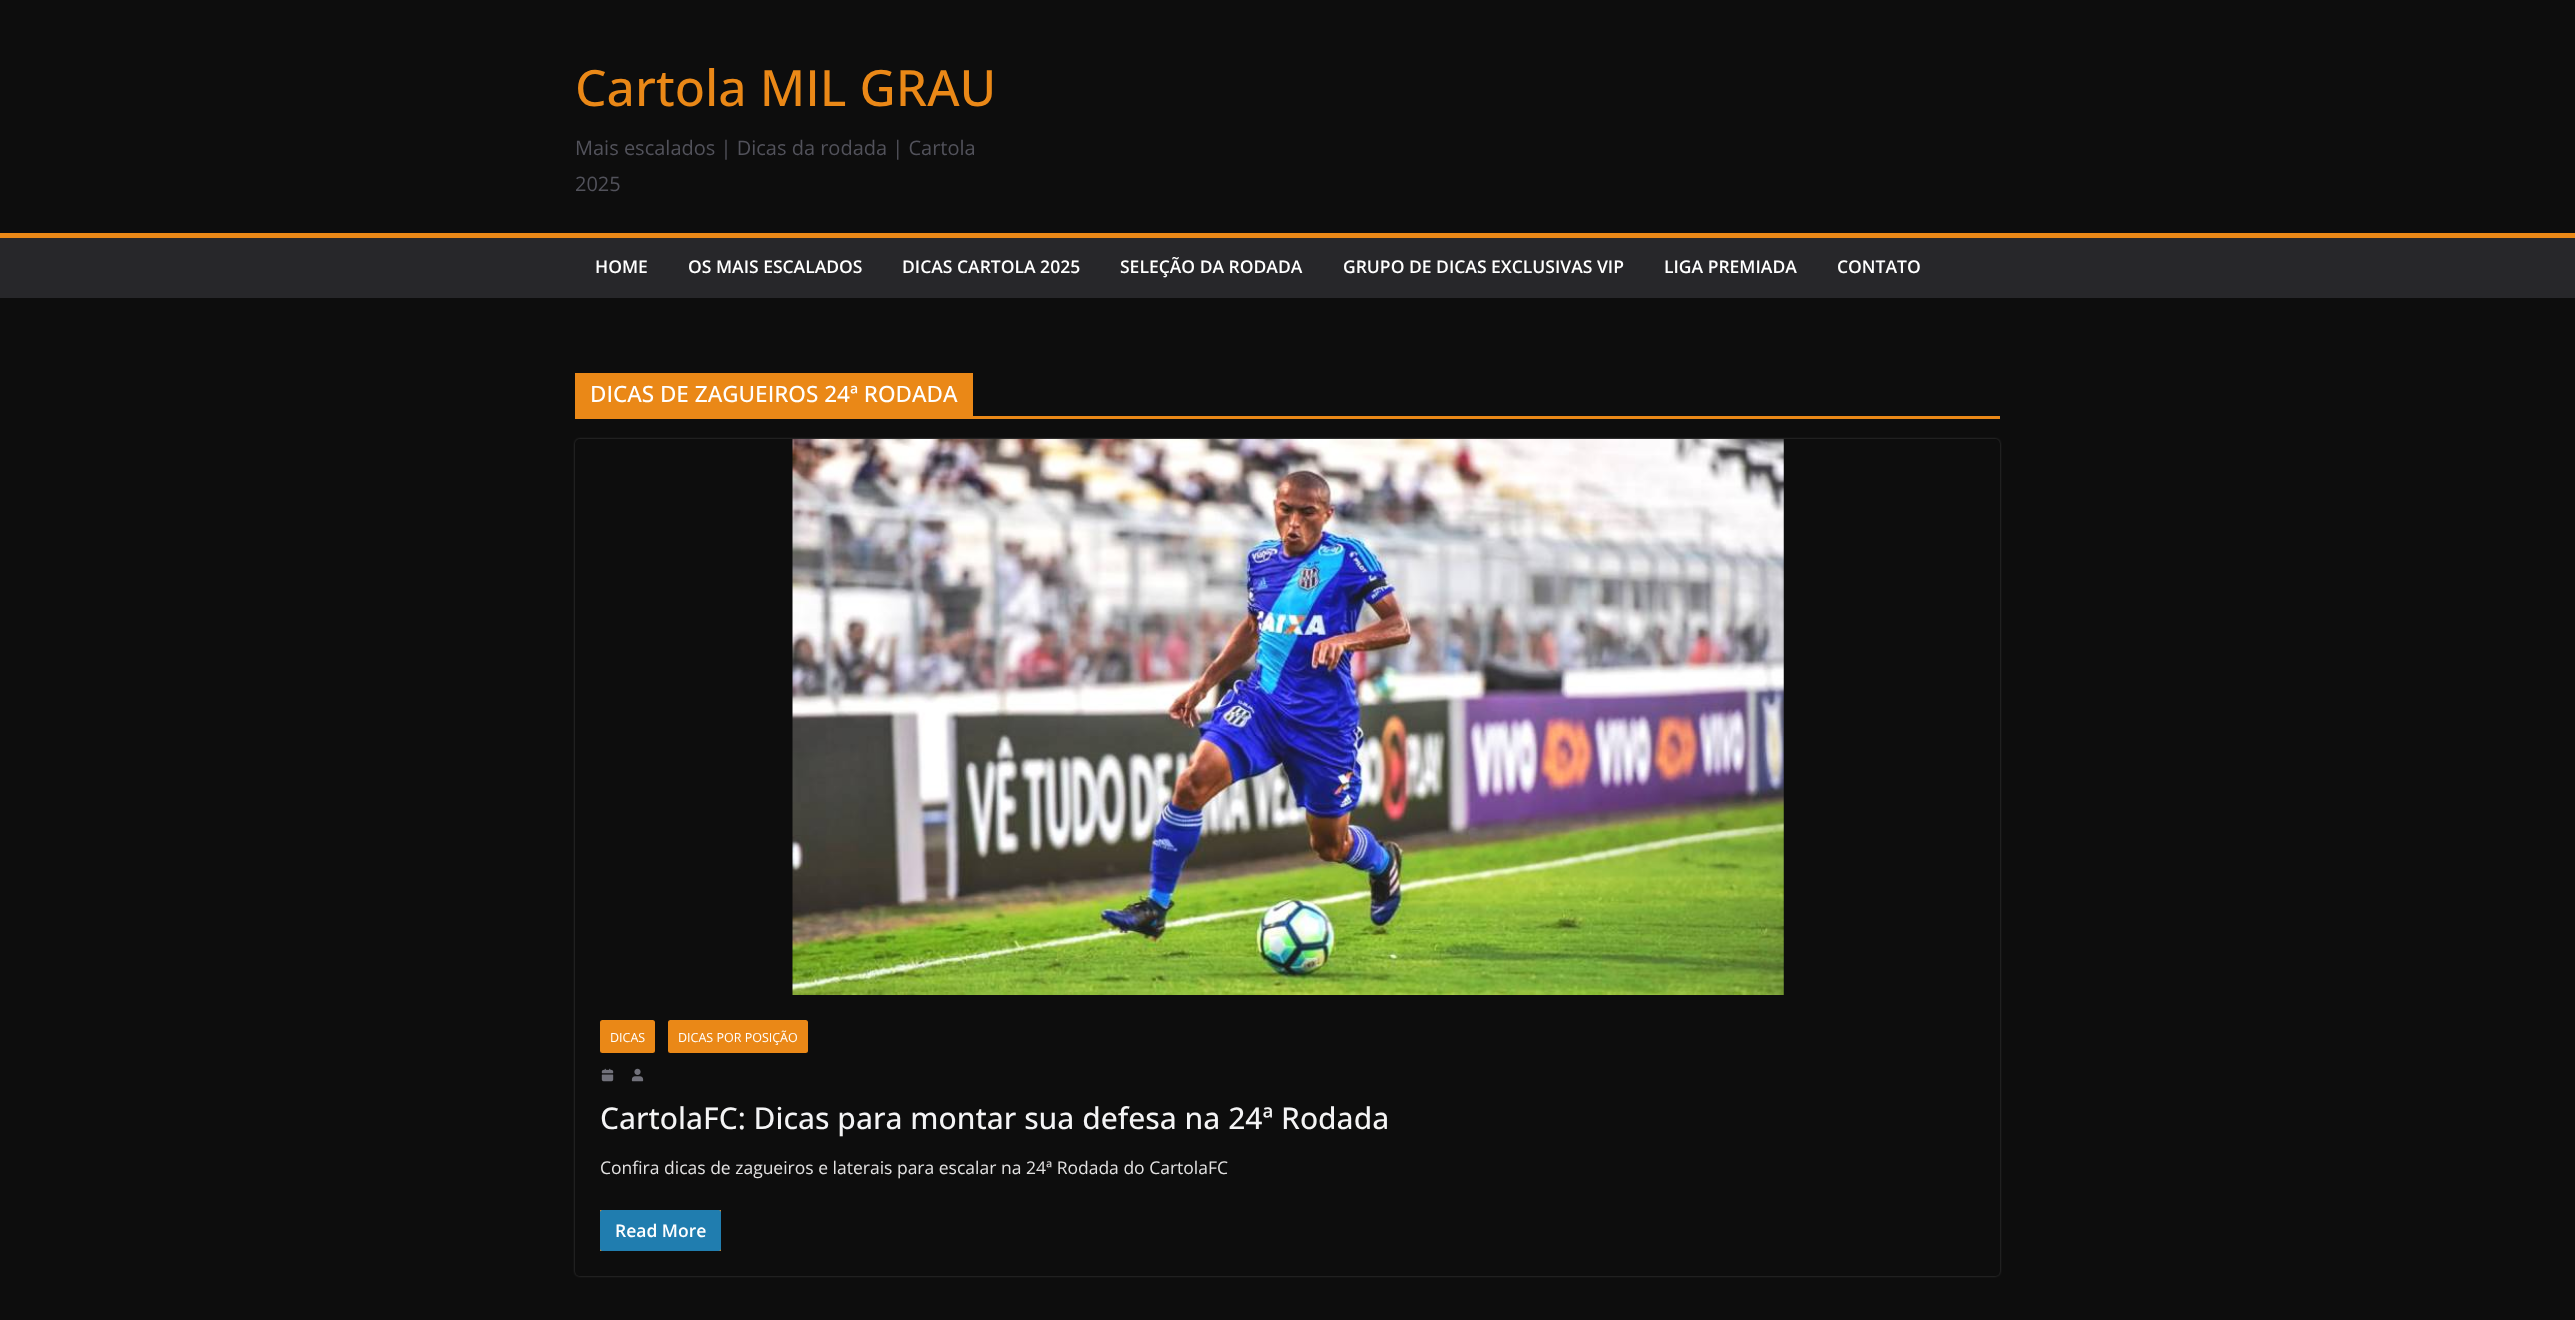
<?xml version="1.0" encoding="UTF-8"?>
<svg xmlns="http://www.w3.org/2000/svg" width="2575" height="1320">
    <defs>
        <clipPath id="clip1"><path d="M 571 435 H 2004 V 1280 H 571 Z M 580 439 H 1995 C 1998 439 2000 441 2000 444 V 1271 C 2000 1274 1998 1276 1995 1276 H 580 C 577 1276 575 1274 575 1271 V 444 C 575 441 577 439 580 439 Z" clip-rule="evenodd"/></clipPath>
        <filter id="blur1" x="-50%" y="-200%" width="200%" height="500%"><feGaussianBlur stdDeviation="1"/></filter>
    </defs>
    <rect width="100%" height="100%" fill="#0D0D0D"/>
    <text x="575" y="106" font-family="Open Sans" font-size="50" font-weight="500" fill="#EA8817">Cartola MIL GRAU</text>
    <text font-family="Open Sans" font-size="20" fill="#52525B">
        <tspan x="575" y="155">Mais escalados | Dicas da rodada | Cartola</tspan>
        <tspan x="575" y="191">2025</tspan>
    </text>
    <rect x="0" y="238" width="2575" height="60" fill="#27272A"/>
    <rect x="0" y="233" width="2575" height="5" fill="#EA8817"/>
    <text x="595" y="273" font-family="Open Sans" font-size="17.5" font-weight="600" fill="#FFFFFF">HOME</text>
    <text x="688" y="273" font-family="Open Sans" font-size="17.5" font-weight="600" fill="#FFFFFF">OS MAIS ESCALADOS</text>
    <text x="902" y="273" font-family="Open Sans" font-size="17.5" font-weight="600" fill="#FFFFFF">DICAS CARTOLA 2025</text>
    <text x="1120" y="273" font-family="Open Sans" font-size="17.5" font-weight="600" fill="#FFFFFF">SELEÇÃO DA RODADA</text>
    <text x="1343" y="273" font-family="Open Sans" font-size="17.5" font-weight="600" fill="#FFFFFF">GRUPO DE DICAS EXCLUSIVAS VIP</text>
    <text x="1664" y="273" font-family="Open Sans" font-size="17.5" font-weight="600" fill="#FFFFFF">LIGA PREMIADA</text>
    <text x="1837" y="273" font-family="Open Sans" font-size="17.5" font-weight="600" fill="#FFFFFF">CONTATO</text>
    <rect x="575" y="416" width="1425" height="3" fill="#EA8817"/>
    <rect x="575" y="373" width="398" height="43" fill="#EA8817"/>
    <text x="590" y="402" font-family="Open Sans" font-size="22.5" font-weight="500" fill="#FFFFFF">DICAS DE ZAGUEIROS 24ª RODADA</text>
    <g clip-path="url(#clip1)">
        <rect x="575" y="439" width="1425" height="837" rx="5" fill="#FFFFFF" fill-opacity="0.24" filter="url(#blur1)"/>
    </g>
    <image x="792" y="438" width="992" height="557" href="img_01.png"/>
    <rect x="600" y="1020" width="55" height="33" rx="2.5" fill="#EA8817"/>
    <text x="610" y="1042" font-family="Open Sans" font-size="12.5" fill="#FFFFFF">DICAS</text>
    <rect x="668" y="1020" width="140" height="33" rx="2.5" fill="#EA8817"/>
    <text x="678" y="1042" font-family="Open Sans" font-size="12.5" fill="#FFFFFF">DICAS POR POSIÇÃO</text>
    <image x="601" y="1068" width="13" height="14" href="img_02.png"/>
    <image x="631" y="1068" width="13" height="14" href="img_03.png"/>
    <text x="600" y="1129" font-family="Open Sans" font-size="30" font-weight="500" fill="#F4F4F5">CartolaFC: Dicas para montar sua defesa na 24ª Rodada</text>
    <text x="600" y="1174" font-family="Open Sans" font-size="17.5" fill="#E3E2E2">Confira dicas de zagueiros e laterais para escalar na 24ª Rodada do CartolaFC</text>
    <rect x="600" y="1210" width="121" height="41" fill="#EA8817"/>
    <rect x="600" y="1210" width="121" height="41" rx="2.5" fill="#207DAF"/>
    <text x="615" y="1237" font-family="Open Sans" font-size="17.5" font-weight="600" fill="#FFFFFF">Read More</text>
</svg>
